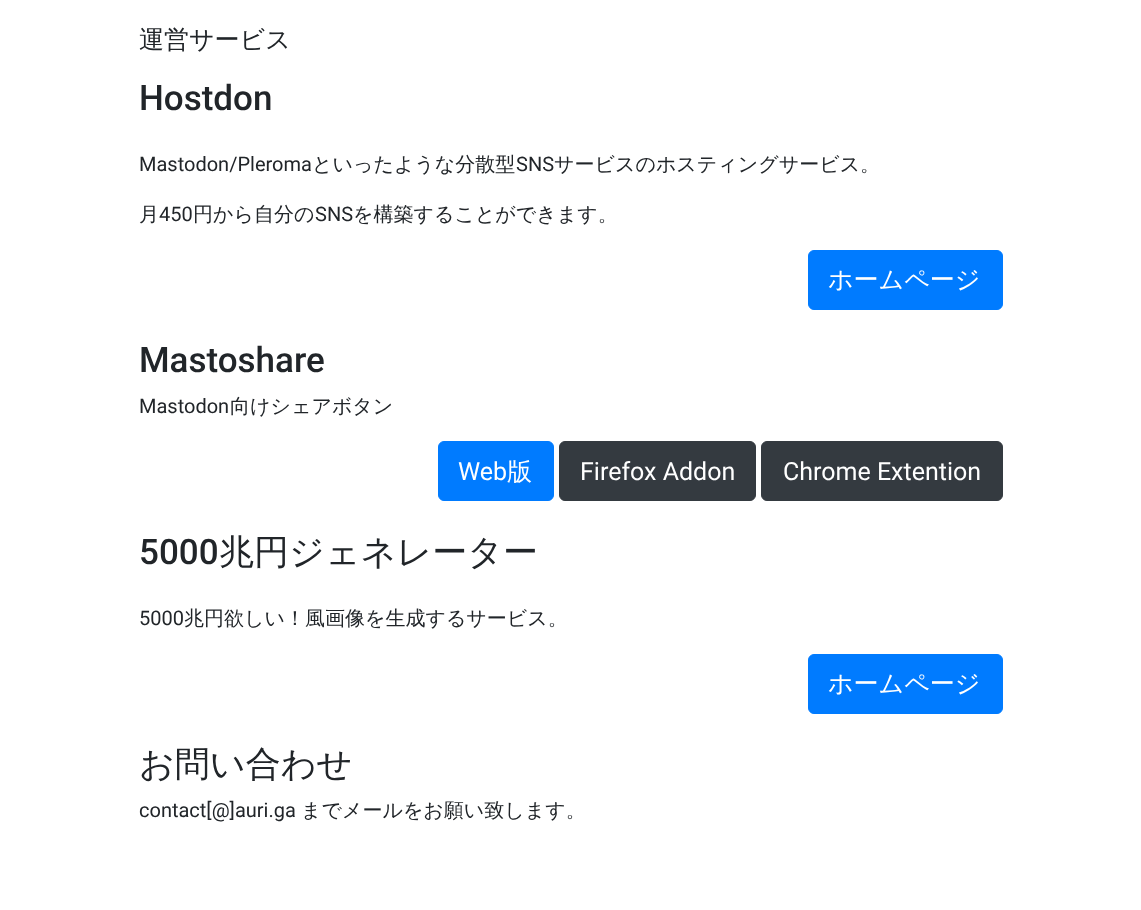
<?xml version="1.0" encoding="UTF-8"?>
<svg xmlns="http://www.w3.org/2000/svg" width="1141" height="910">
    <rect width="100%" height="100%" fill="#FFFFFF"/>
    <text x="139" y="48" font-family="WenQuanYi Zen Hei" font-size="25" font-weight="500" fill="#212529">運営サービス</text>
    <text x="139" y="110" font-family="Roboto" font-size="35" font-weight="500" fill="#212529">Hostdon</text>
    <text x="139" y="171" font-family="Roboto" font-size="20" fill="#212529">Mastodon/Pleroma</text>
    <text x="312" y="171" font-family="WenQuanYi Zen Hei" font-size="20" font-weight="500" fill="#212529">といったような分散型</text>
    <text x="516" y="171" font-family="Roboto" font-size="20" fill="#212529">SNS</text>
    <text x="554" y="171" font-family="WenQuanYi Zen Hei" font-size="20" font-weight="500" fill="#212529">サービスのホスティングサービス。</text>
    <text x="139" y="221" font-family="WenQuanYi Zen Hei" font-size="20" font-weight="500" fill="#212529">月</text>
    <text x="159" y="221" font-family="Roboto" font-size="20" fill="#212529">450</text>
    <text x="193" y="221" font-family="WenQuanYi Zen Hei" font-size="20" font-weight="500" fill="#212529">円から自分の</text>
    <text x="315" y="221" font-family="Roboto" font-size="20" fill="#212529">SNS</text>
    <text x="353" y="221" font-family="WenQuanYi Zen Hei" font-size="20" font-weight="500" fill="#212529">を構築することができます。</text>
    <rect x="808.5" y="250.5" width="194" height="59" rx="5.5" fill="#007BFF" stroke="#007BFF"/>
    <text x="828" y="288" font-family="WenQuanYi Zen Hei" font-size="25" font-weight="500" fill="#FFFFFF">ホームページ</text>
    <text x="139" y="372" font-family="Roboto" font-size="35" font-weight="500" fill="#212529">Mastoshare</text>
    <text x="139" y="413" font-family="Roboto" font-size="20" fill="#212529">Mastodon</text>
    <text x="230" y="413" font-family="WenQuanYi Zen Hei" font-size="20" font-weight="500" fill="#212529">向けシェアボタン</text>
    <rect x="438.5" y="441.5" width="115" height="59" rx="5.5" fill="#007BFF" stroke="#007BFF"/>
    <text x="458" y="480" font-family="Roboto" font-size="25" fill="#FFFFFF">Web</text>
    <text x="507" y="480" font-family="WenQuanYi Zen Hei" font-size="25" font-weight="500" fill="#FFFFFF">版</text>
    <rect x="559.5" y="441.5" width="196" height="59" rx="5.5" fill="#343A40" stroke="#343A40"/>
    <text x="580" y="480" font-family="Roboto" font-size="25" fill="#FFFFFF">Firefox Addon</text>
    <rect x="761.5" y="441.5" width="241" height="59" rx="5.5" fill="#343A40" stroke="#343A40"/>
    <text x="783" y="480" font-family="Roboto" font-size="25" fill="#FFFFFF">Chrome Extention</text>
    <text x="139" y="564" font-family="Roboto" font-size="35" font-weight="500" fill="#212529">5000</text>
    <text x="219" y="564" font-family="WenQuanYi Zen Hei" font-size="35" font-weight="500" fill="#212529">兆円ジェネレーター</text>
    <text x="139" y="625" font-family="Roboto" font-size="20" fill="#212529">5000</text>
    <text x="184" y="625" font-family="WenQuanYi Zen Hei" font-size="20" font-weight="500" fill="#212529">兆円欲しい！風画像を生成するサービス。</text>
    <rect x="808.5" y="654.5" width="194" height="59" rx="5.5" fill="#007BFF" stroke="#007BFF"/>
    <text x="828" y="692" font-family="WenQuanYi Zen Hei" font-size="25" font-weight="500" fill="#FFFFFF">ホームページ</text>
    <text x="139" y="776" font-family="WenQuanYi Zen Hei" font-size="35" font-weight="500" fill="#212529">お問い合わせ</text>
    <text x="139" y="817" font-family="Roboto" font-size="20" fill="#212529">contact[@]auri.ga</text>
    <text x="301" y="817" font-family="WenQuanYi Zen Hei" font-size="20" font-weight="500" fill="#212529">までメールをお願い致します。</text>
</svg>
